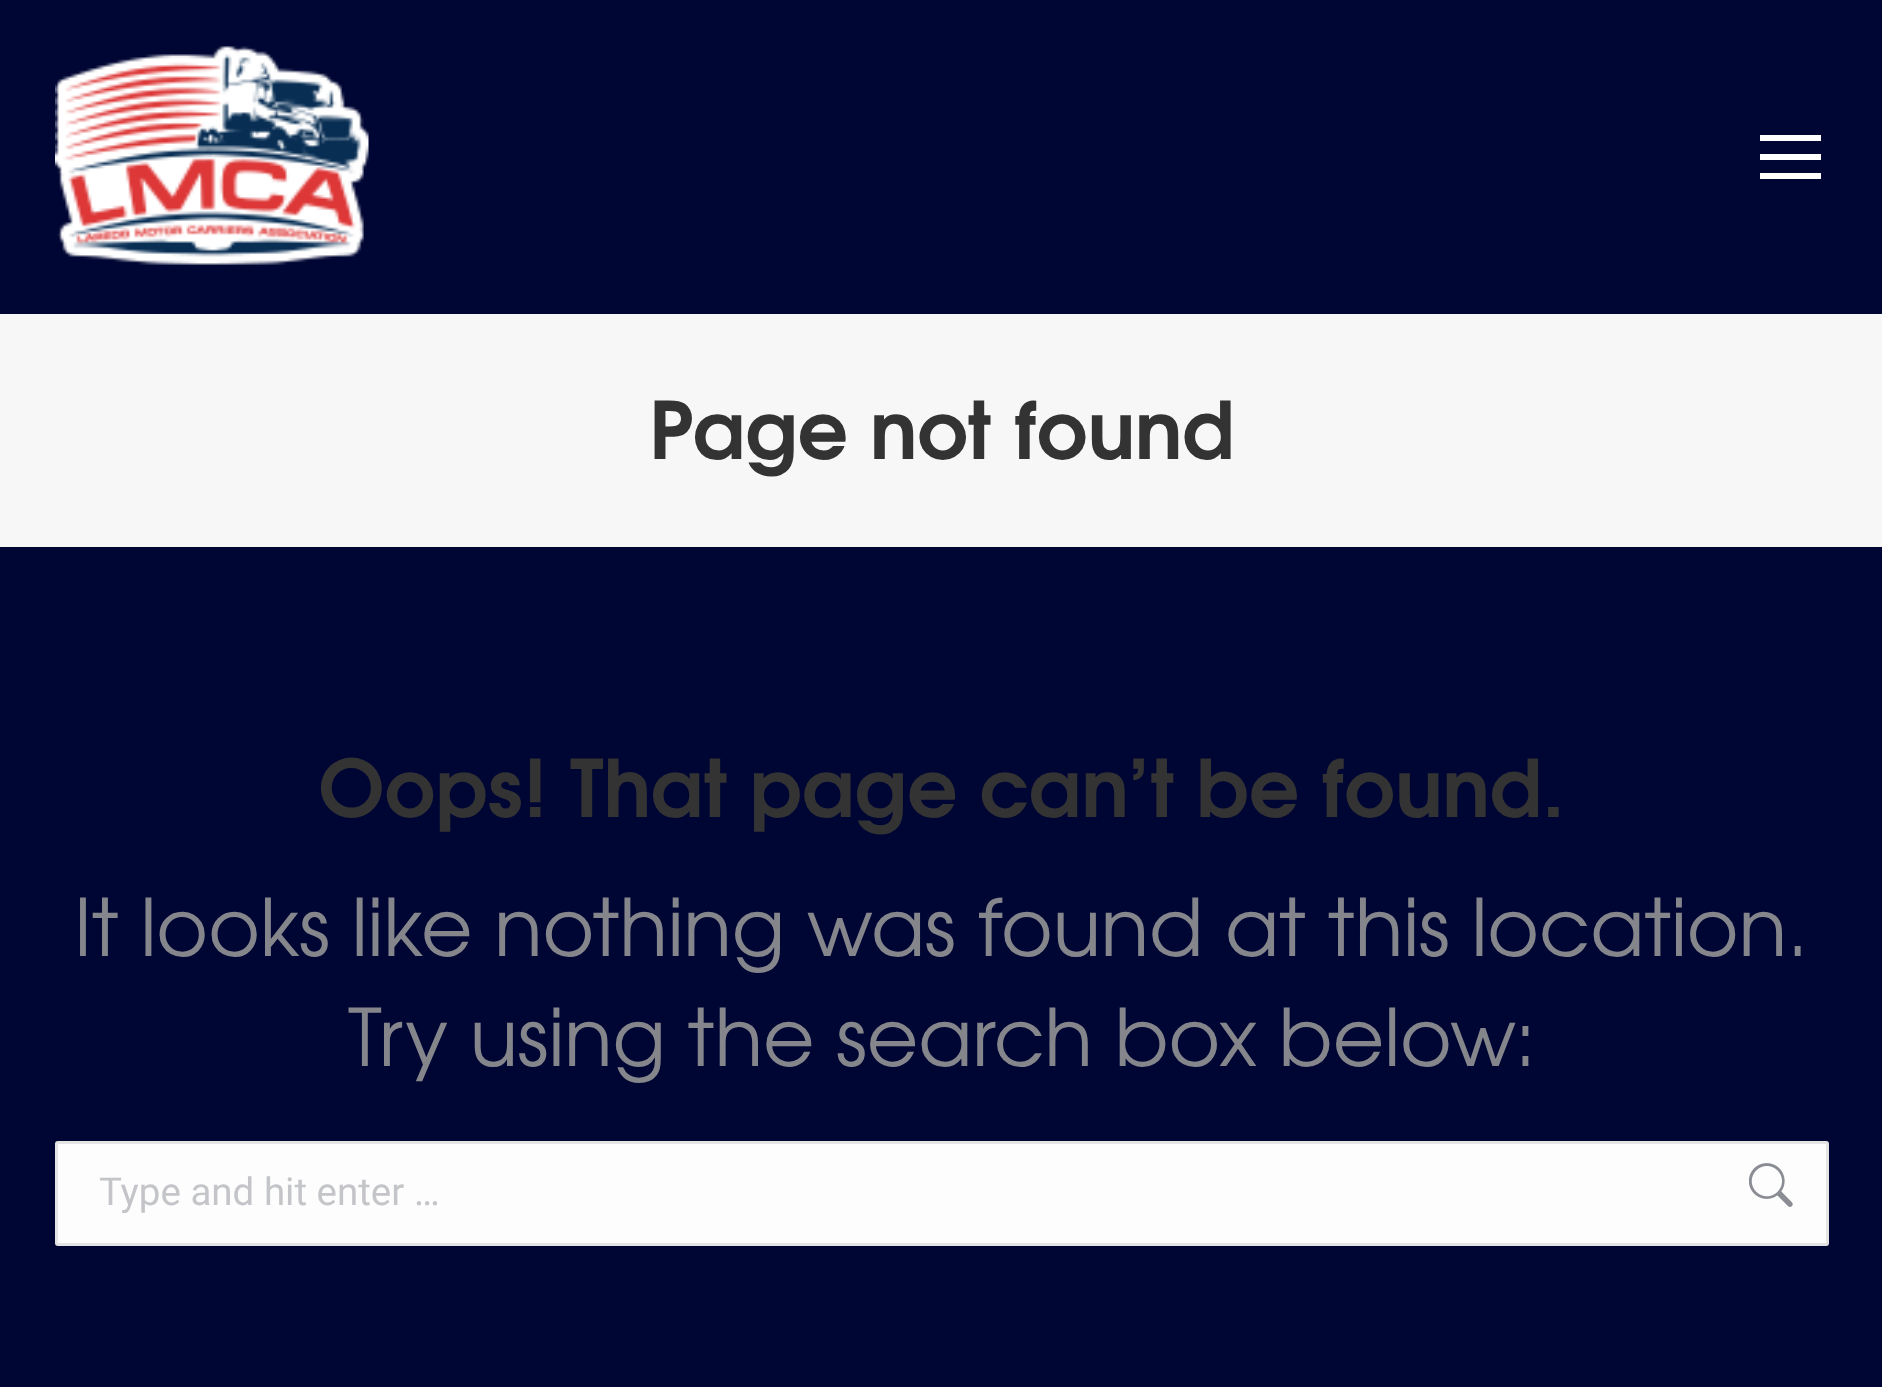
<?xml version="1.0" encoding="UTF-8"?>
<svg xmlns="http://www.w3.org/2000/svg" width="1882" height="1387">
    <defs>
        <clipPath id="clip1"><rect x="99" y="1169" width="1645" height="44"/></clipPath>
    </defs>
    <rect width="100%" height="100%" fill="#000633"/>
    <image x="55" y="46" width="314" height="219" href="img_01.png"/>
    <rect x="1760" y="135" width="61" height="6" fill="#FFFFFF"/>
    <rect x="1760" y="154" width="61" height="6" fill="#FFFFFF"/>
    <rect x="1760" y="173" width="61" height="6" fill="#FFFFFF"/>
    <rect x="0" y="314" width="1882" height="233" fill="#F7F7F7"/>
    <text x="649" y="459" font-family="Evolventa" font-size="79.1" font-weight="700" fill="#333333">Page not found</text>
    <text x="318" y="817" font-family="Evolventa" font-size="79.1" font-weight="700" fill="#333333">Oops! That page can’t be found.</text>
    <text x="74" y="956" font-family="Evolventa" font-size="79.1" fill="#85868C">It looks like nothing was found at this location.</text>
    <text x="348" y="1066" font-family="Evolventa" font-size="79.1" fill="#85868C">Try using the search box below:</text>
    <rect x="55" y="1141" width="1774" height="105" rx="3" fill="#FDFDFD"/>
    <rect x="56.5" y="1142.5" width="1771" height="102" rx="1.5" fill="none" stroke="#333333" stroke-opacity="0.12" stroke-width="3"/>
    <g clip-path="url(#clip1)">
        <text x="99" y="1205" font-family="Roboto" font-size="38.5" fill="#C4C5C9">Type and hit enter …</text>
    </g>
    <image x="1749" y="1163" width="44" height="44" href="img_02.png"/>
</svg>
